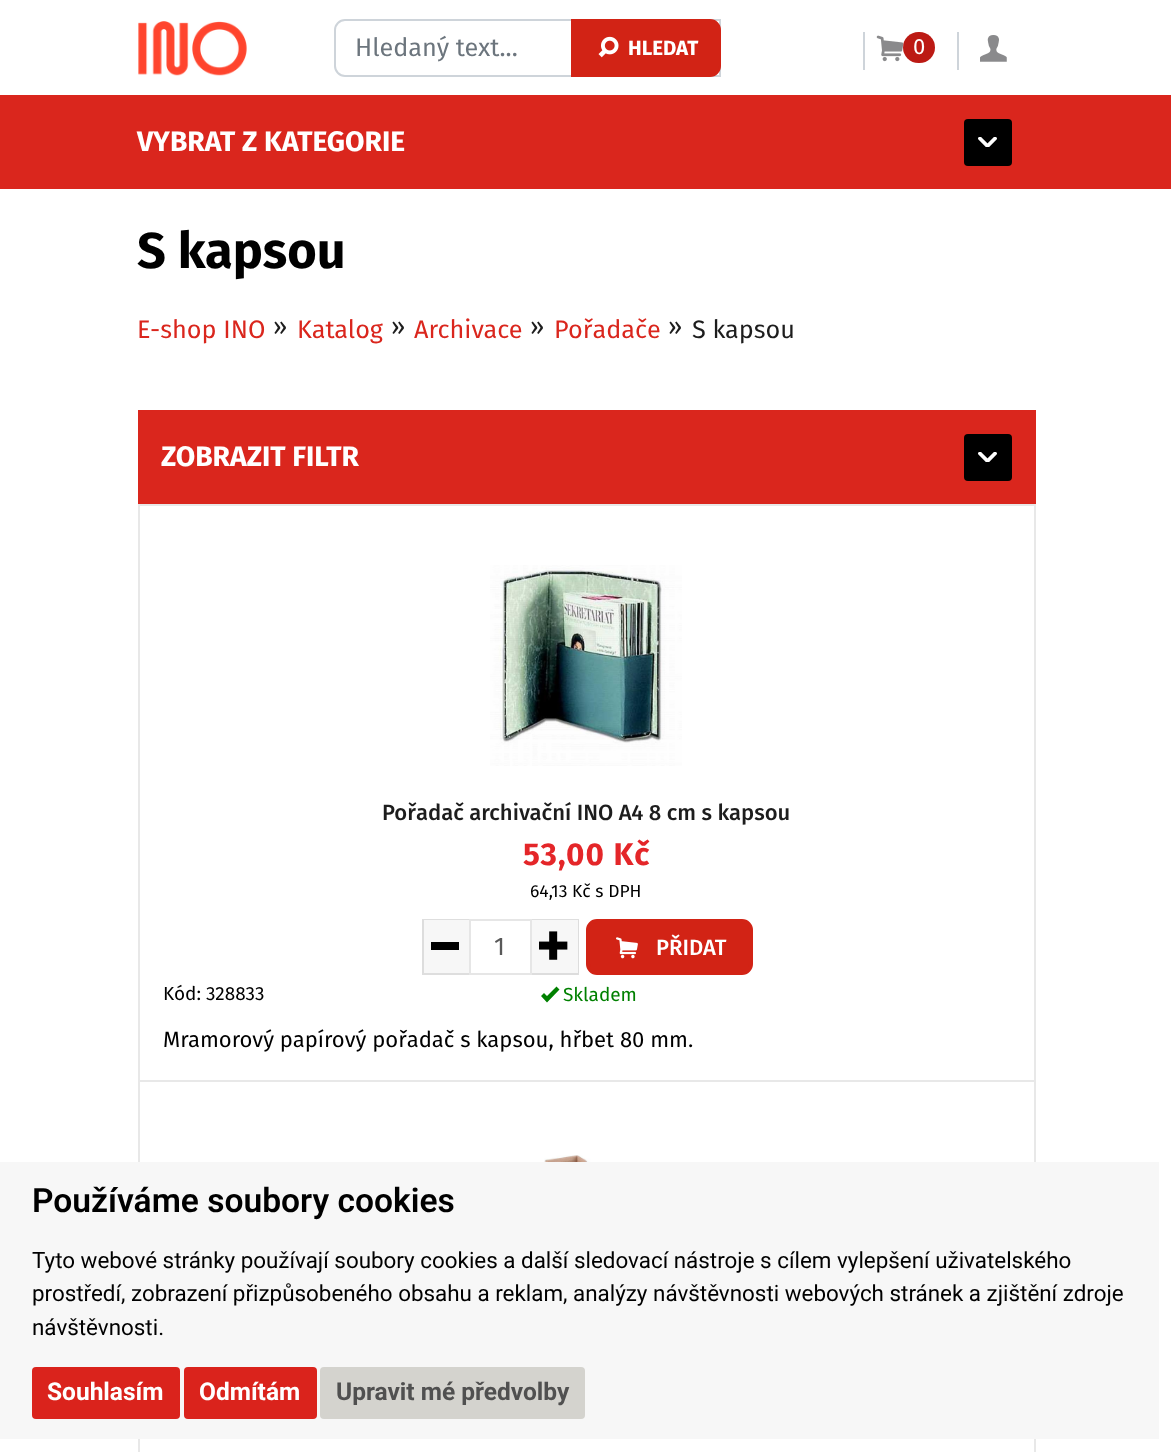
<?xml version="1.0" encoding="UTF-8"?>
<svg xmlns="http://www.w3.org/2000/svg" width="1171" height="1452">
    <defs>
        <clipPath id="clip1"><rect x="978" y="137" width="20" height="10"/></clipPath>
        <clipPath id="clip2"><rect x="978" y="452" width="20" height="10"/></clipPath>
    </defs>
    <rect width="100%" height="100%" fill="#FFFFFF"/>
    <image x="138" y="21" width="109" height="55" href="img_01.png"/>
    <path d="M 345 20 H 720 V 76 H 345 C 339.5 76 335 71.5 335 66 V 30 C 335 24.5 339.5 20 345 20 Z" fill="none" stroke="#CED4DA" stroke-width="2"/>
    <text x="355" y="56" font-family="Fira Sans" font-size="25.25" fill="#6C757D">Hledaný text...</text>
    <path d="M 572 20 H 710 C 715.5 20 720 24.5 720 30 V 66 C 720 71.5 715.5 76 710 76 H 572 Z" fill="#D22315" stroke="#D22315" stroke-width="2"/>
    <image x="598" y="36" width="21" height="22" href="img_02.png"/>
    <text x="628" y="55" font-family="Fira Sans" font-size="20.5" font-weight="700" fill="#FFFFFF">HLEDAT</text>
    <rect x="863" y="32" width="2" height="38" fill="#CED4DA"/>
    <image x="876" y="35" width="28" height="27" href="img_03.png"/>
    <rect x="903" y="32" width="32" height="31" rx="15.5" fill="#BC1A14"/>
    <text x="913" y="54" font-family="Fira Sans" font-size="22.05" fill="#FFFFFF">0</text>
    <rect x="957" y="32" width="2" height="38" fill="#CED4DA"/>
    <image x="980" y="35" width="27" height="27" href="img_04.png"/>
    <rect x="0" y="95" width="1171" height="94" fill="#DA261D"/>
    <text x="137" y="151" font-family="Fira Sans" font-size="28.25" font-weight="700" fill="#FFFFFF">VYBRAT Z KATEGORIE</text>
    <rect x="964" y="119" width="48" height="47" rx="4" fill="#000000"/>
    <g clip-path="url(#clip1)">
        <path d="M 995 138.5 L 987.5 146 L 980 138.5" fill="none" stroke="#FFFFFF" stroke-width="3.8" stroke-linecap="round"/>
    </g>
    <text x="137" y="268" font-family="Fira Sans" font-size="50.5" font-weight="700" fill="#000000">S kapsou</text>
    <text x="137" y="338" font-family="Fira Sans" font-size="25.25" fill="#DA261D">E-shop INO</text>
    <text x="273" y="335" font-family="Fira Sans" font-size="25.25" fill="#1D1D1D">»</text>
    <text x="297" y="338" font-family="Fira Sans" font-size="25.25" fill="#DA261D">Katalog</text>
    <text x="391" y="335" font-family="Fira Sans" font-size="25.25" fill="#1D1D1D">»</text>
    <text x="414" y="338" font-family="Fira Sans" font-size="25.25" fill="#DA261D">Archivace</text>
    <text x="530" y="335" font-family="Fira Sans" font-size="25.25" fill="#1D1D1D">»</text>
    <text x="554" y="338" font-family="Fira Sans" font-size="25.25" fill="#DA261D">Pořadače</text>
    <text x="668" y="335" font-family="Fira Sans" font-size="25.25" fill="#1D1D1D">»</text>
    <text x="692" y="338" font-family="Fira Sans" font-size="25.25" fill="#1D1D1D">S kapsou</text>
    <rect x="138" y="410" width="898" height="94" fill="#DA261D"/>
    <text x="161" y="466" font-family="Fira Sans" font-size="28.25" font-weight="700" fill="#FFFFFF">ZOBRAZIT FILTR</text>
    <rect x="964" y="434" width="48" height="47" rx="4" fill="#000000"/>
    <g clip-path="url(#clip2)">
        <path d="M 995 453.5 L 987.5 461 L 980 453.5" fill="none" stroke="#FFFFFF" stroke-width="3.8" stroke-linecap="round"/>
    </g>
    <rect x="138" y="504" width="898" height="2" fill="#E8E8E8"/>
    <rect x="1034" y="504" width="2" height="576" fill="#E8E8E8"/>
    <rect x="138" y="504" width="2" height="576" fill="#E8E8E8"/>
    <image x="490" y="565" width="192" height="201" href="img_05.png"/>
    <text x="382" y="820" font-family="Fira Sans" font-size="22.05" font-weight="500" fill="#1D1D1D">Pořadač archivační INO A4 8 cm s kapsou</text>
    <text x="523" y="865" font-family="Fira Sans" font-size="31.5" font-weight="700" letter-spacing="1" fill="#E42629">53,00 Kč</text>
    <text x="530" y="897" font-family="Fira Sans" font-size="17.5" fill="#000000">64,13 Kč s DPH</text>
    <text x="163" y="1000" font-family="Fira Sans" font-size="19" fill="#000000">Kód: 328833</text>
    <rect x="422" y="919" width="47" height="56" fill="#F7F7F7"/>
    <path d="M 422 919 H 469 V 920 H 424 Z M 469 975 H 422 L 424 973 H 469 Z" fill="#DEDEDE"/>
    <path d="M 422 975 V 919 L 424 920 V 973 Z" fill="#000000" fill-opacity="0.1"/>
    <rect x="431" y="942" width="28" height="8" fill="#000000"/>
    <rect x="470" y="920" width="61" height="54" fill="none" stroke="#E6E6E6" stroke-width="2"/>
    <text x="494" y="955" font-family="Fira Sans" font-size="25.25" fill="#595959">1</text>
    <rect x="532" y="919" width="47" height="56" fill="#F7F7F7"/>
    <path d="M 532 919 H 579 L 578 920 H 532 Z" fill="#DEDEDE"/>
    <path d="M 579 919 V 975 L 578 973 V 920 Z" fill="#000000" fill-opacity="0.1"/>
    <path d="M 579 975 H 532 V 973 H 578 Z" fill="#000000" fill-opacity="0.1"/>
    <image x="539" y="931" width="29" height="29" href="img_06.png"/>
    <rect x="588" y="921" width="163" height="52" rx="9" fill="#D22315" stroke="#D22315" stroke-width="4"/>
    <image x="616" y="937" width="22" height="22" href="img_07.png"/>
    <text x="656" y="955" font-family="Fira Sans" font-size="22.05" font-weight="500" fill="#FFFFFF">PŘIDAT</text>
    <path d="M 541 996 L 544 993 L 547 996 L 556.5 986.5 L 559.5 989.5 L 547 1002.5 Z" fill="#008000"/>
    <text x="563" y="1001" font-family="Fira Sans" font-size="19" fill="#008000">Skladem</text>
    <text x="163" y="1047" font-family="Fira Sans" font-size="22.05" fill="#000000">Mramorový papírový pořadač s kapsou, hřbet 80 mm.</text>
    <rect x="138" y="1080" width="898" height="2" fill="#E8E8E8"/>
    <rect x="1034" y="1080" width="2" height="372" fill="#E8E8E8"/>
    <rect x="138" y="1080" width="2" height="372" fill="#E8E8E8"/>
    <image x="544" y="1155" width="85" height="7" href="img_08.png"/>
    <rect x="0" y="1162" width="1159" height="277" fill="#F7F7F7"/>
    <text x="32" y="1212" font-family="Roboto" font-size="33.6" font-weight="600" fill="#000000">Používáme soubory cookies</text>
    <text font-family="Roboto" font-size="22.4" fill="#000000">
        <tspan x="32" y="1268">Tyto webové stránky používají soubory cookies a další sledovací nástroje s cílem vylepšení uživatelského</tspan>
        <tspan x="32" y="1301">prostředí, zobrazení přizpůsobeného obsahu a reklam, analýzy návštěvnosti webových stránek a zjištění zdroje</tspan>
        <tspan x="32" y="1335">návštěvnosti.</tspan>
    </text>
    <rect x="32" y="1367" width="148" height="52" rx="4" fill="#DA231C"/>
    <text x="47" y="1400" font-family="Roboto" font-size="24.5" font-weight="700" fill="#FFFFFF">Souhlasím</text>
    <rect x="184" y="1367" width="133" height="52" rx="4" fill="#DA231C"/>
    <text x="199" y="1400" font-family="Roboto" font-size="24.5" font-weight="700" fill="#FFFFFF">Odmítám</text>
    <rect x="320" y="1367" width="265" height="52" rx="4" fill="#D4D3CE"/>
    <text x="336" y="1400" font-family="Roboto" font-size="24.5" font-weight="700" fill="#505050">Upravit mé předvolby</text>
</svg>
